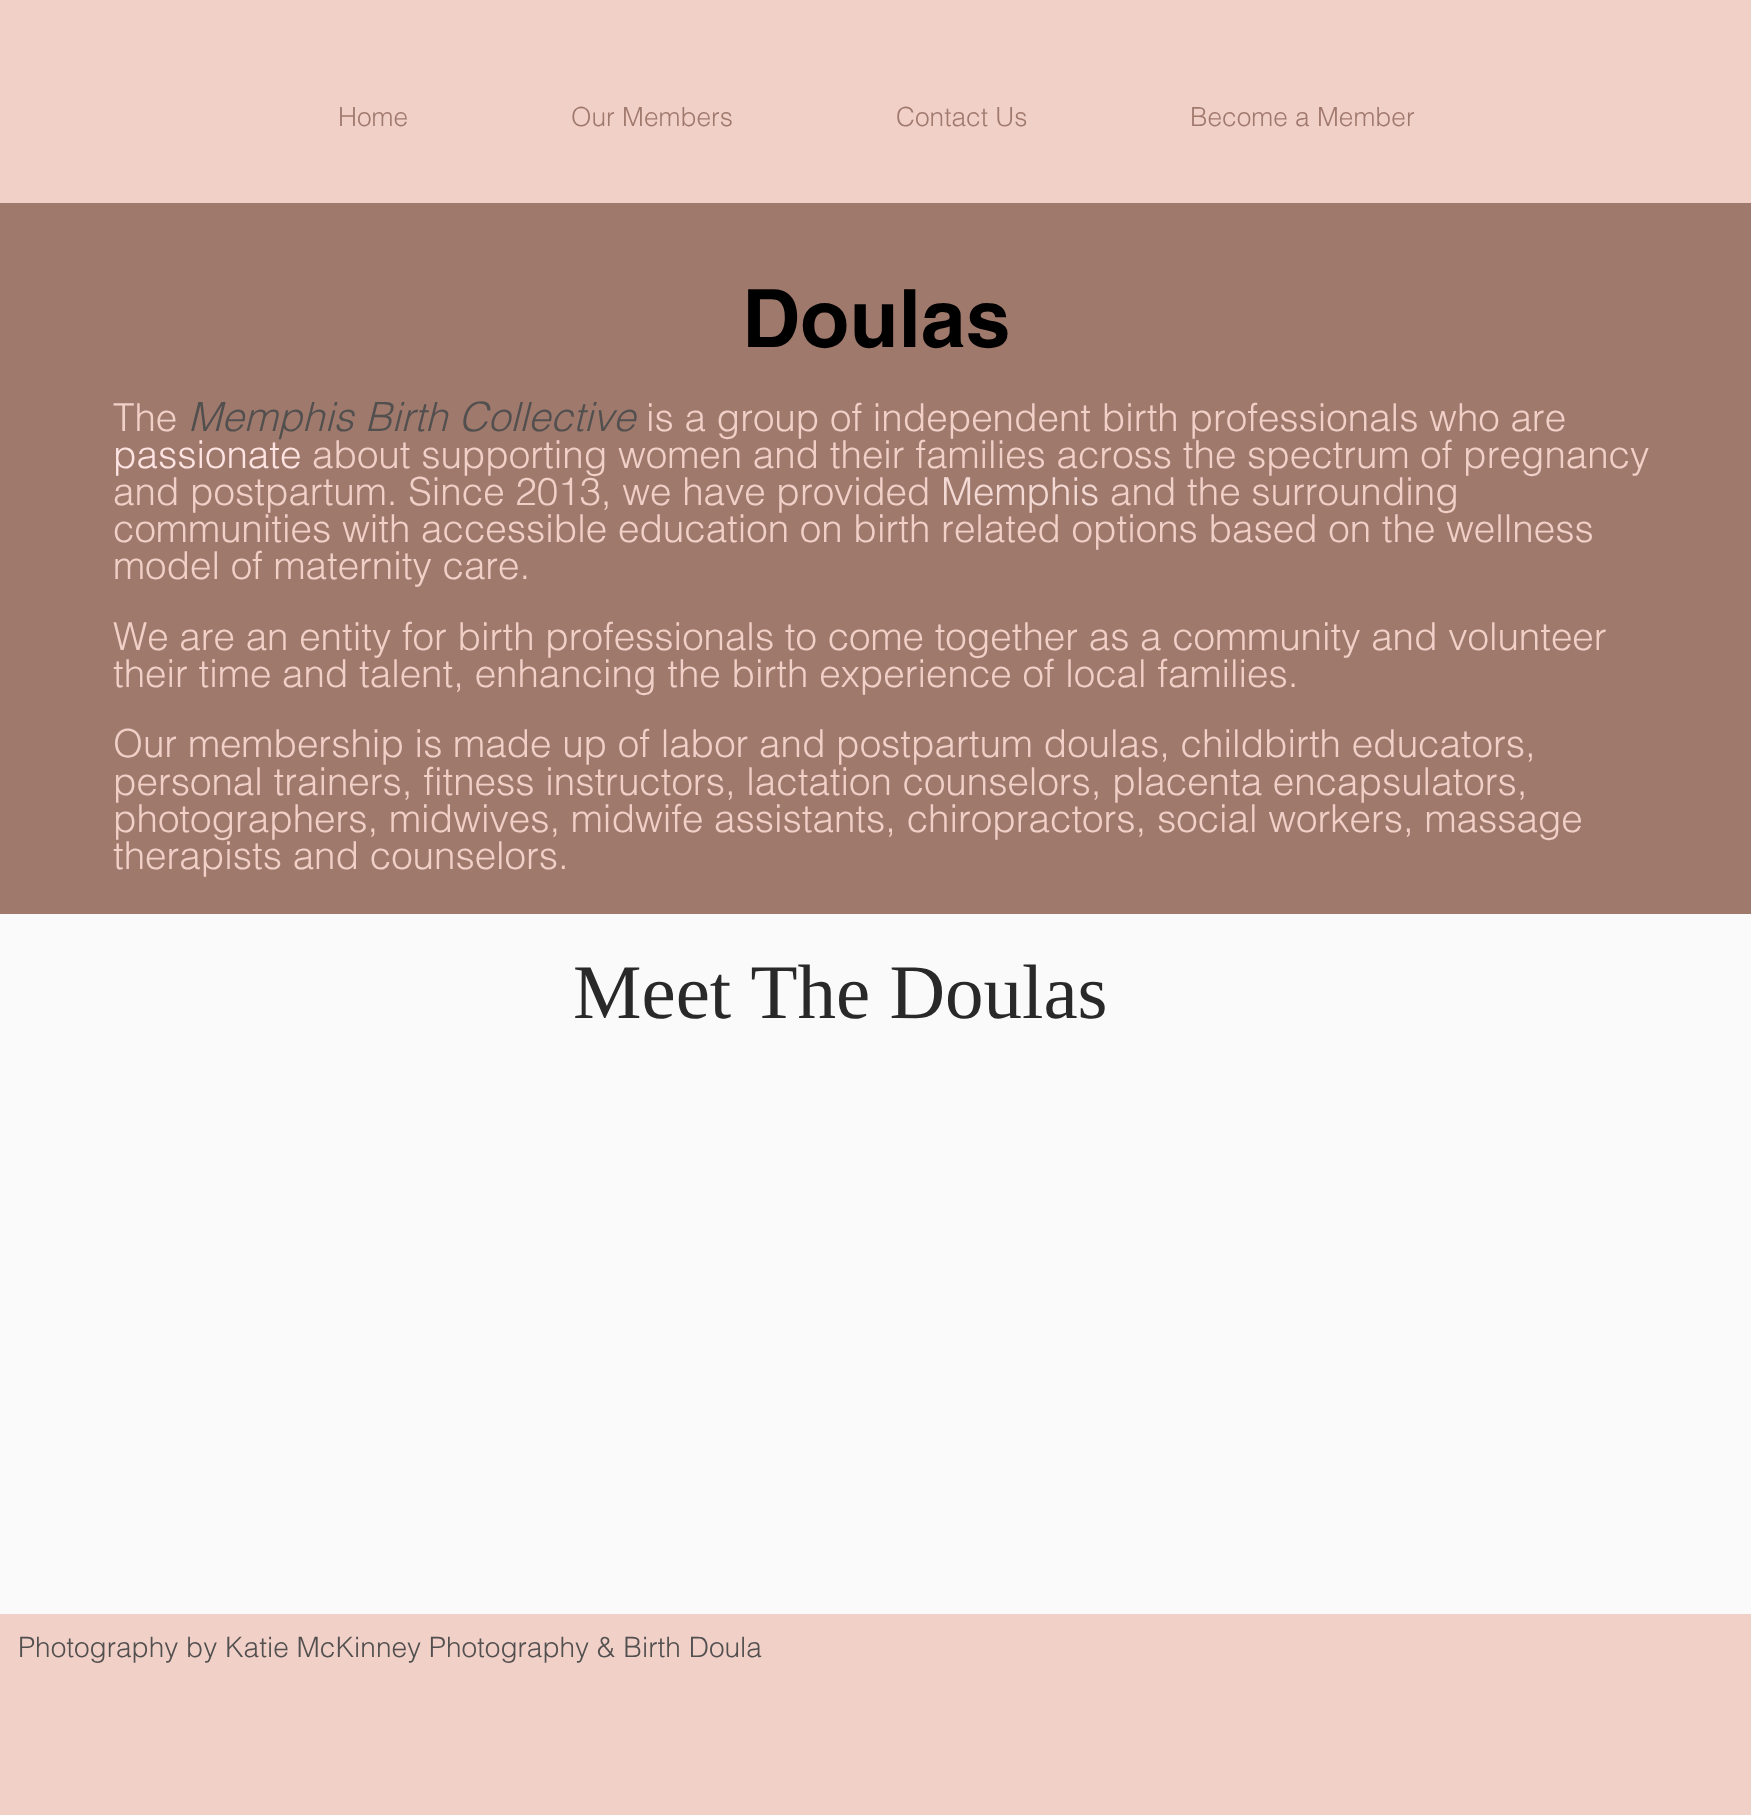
<?xml version="1.0" encoding="UTF-8"?>
<svg xmlns="http://www.w3.org/2000/svg" width="1751" height="1815">
    <style>*{font-kerning:none!important;font-variant-ligatures:none!important}</style>
    <rect width="100%" height="100%" fill="#F1D0C8"/>
    <text x="338" y="126" font-family="helvetica" font-size="26.25" font-weight="300" fill="#A0796D">Home</text>
    <text x="571" y="126" font-family="helvetica" font-size="26.25" font-weight="300" fill="#A0796D">Our Members</text>
    <text x="896" y="126" font-family="helvetica" font-size="26.25" font-weight="300" fill="#A0796D">Contact Us</text>
    <text x="1190" y="126" font-family="helvetica" font-size="26.25" font-weight="300" fill="#A0796D">Become a Member</text>
    <rect x="0" y="203" width="1751" height="711" fill="#A0796D"/>
    <text x="742" y="347" font-family="helvetica" font-size="80.5" font-weight="700" fill="#000000">Doulas</text>
    <text x="113" y="431" font-family="helvetica" font-size="38.5" font-weight="300" fill="#F1D0C8">The</text>
    <text x="188" y="431" font-family="helvetica" font-size="40.25" font-weight="300" font-style="italic" fill="#524F4F">Memphis Birth Collective</text>
    <text x="646" y="431" font-family="helvetica" font-size="38.5" font-weight="300" fill="#F1D0C8">is a group of independent birth professionals who are</text>
    <text x="113" y="468" font-family="helvetica" font-size="38.5" font-weight="300" fill="#FEE4E2">passionate</text>
    <text x="312" y="468" font-family="helvetica" font-size="38.5" font-weight="300" fill="#F1D0C8">about supporting women and their families across the spectrum of pregnancy</text>
    <text x="113" y="505" font-family="helvetica" font-size="38.5" font-weight="300" fill="#F1D0C8">and postpartum. Since 2013, we have provided</text>
    <text x="941" y="505" font-family="helvetica" font-size="38.5" font-weight="300" fill="#F3DAD4">Memphis</text>
    <text x="1110" y="505" font-family="helvetica" font-size="38.5" font-weight="300" fill="#F1D0C8">and the surrounding</text>
    <text font-family="helvetica" font-size="38.5" font-weight="300" fill="#F1D0C8">
        <tspan x="113" y="542">communities with accessible education on birth related options based on the wellness</tspan>
        <tspan x="113" y="579">model of maternity care.</tspan>
        <tspan x="113" y="650">We are an entity for birth professionals to come together as a community and volunteer</tspan>
        <tspan x="113" y="687">their time and talent, enhancing the birth experience of local families.</tspan>
        <tspan x="113" y="757">Our membership is made up of labor and postpartum doulas, childbirth educators,</tspan>
        <tspan x="113" y="795">personal trainers, fitness instructors, lactation counselors, placenta encapsulators,</tspan>
        <tspan x="113" y="832">photographers, midwives, midwife assistants, chiropractors, social workers, massage</tspan>
        <tspan x="113" y="869">therapists and counselors.</tspan>
    </text>
    <rect x="0" y="914" width="1751" height="700" fill="#FAFAFA"/>
    <text x="573" y="1018" font-family="Liberation Serif" font-size="77" fill="#292929">Meet The Doulas</text>
    <text x="18" y="1657" font-family="helvetica" font-size="28" font-weight="300" fill="#524F4F">Photography by Katie McKinney Photography &amp; Birth Doula</text>
</svg>
